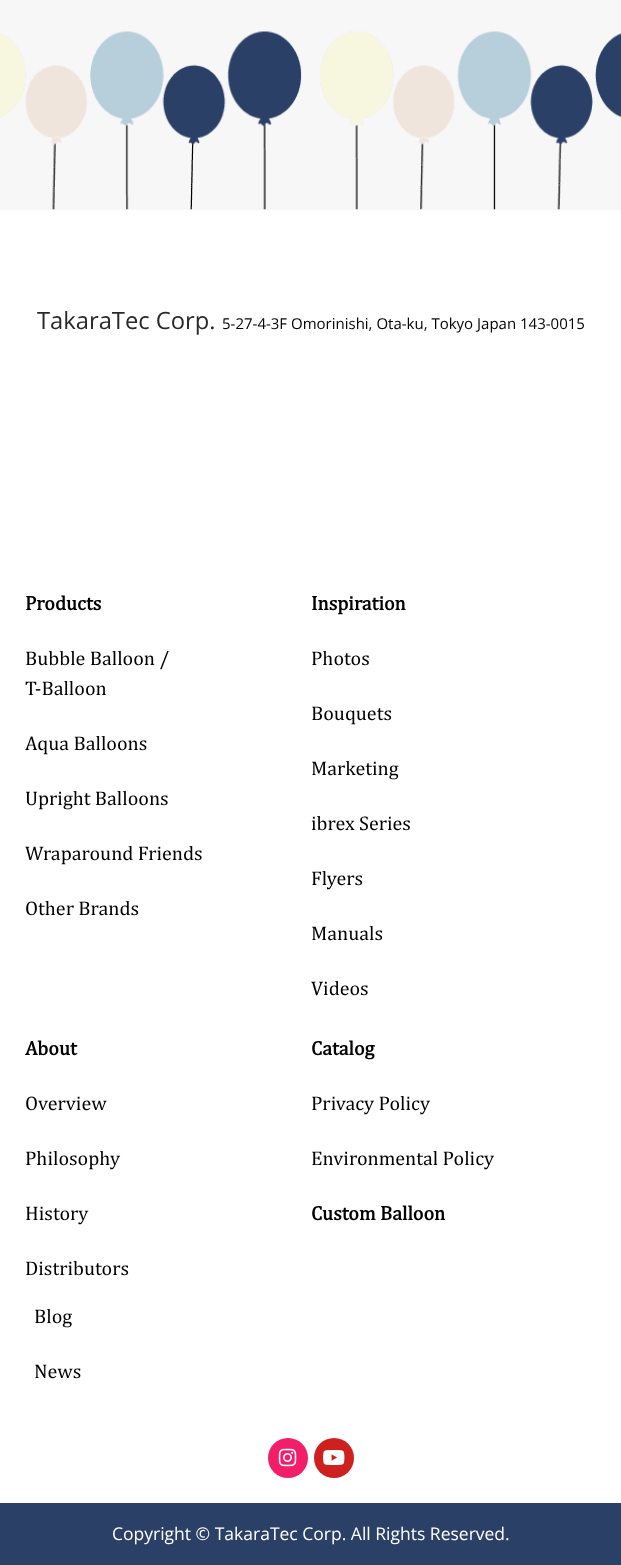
<?xml version="1.0" encoding="UTF-8"?>
<svg xmlns="http://www.w3.org/2000/svg" width="621" height="1565">
    <rect width="100%" height="100%" fill="#F7F7F7"/>
    <image x="0" y="31" width="621" height="179" href="img_01.png"/>
    <rect x="0" y="210" width="621" height="1293" fill="#FFFFFF"/>
    <text x="37" y="329" font-family="Open Sans" font-size="23.75" fill="#292929">TakaraTec Corp.</text>
    <text x="222" y="329" font-family="Open Sans" font-size="15" fill="#000000">5-27-4-3F Omorinishi, Ota-ku, Tokyo Japan 143-0015</text>
    <text x="25" y="610" font-family="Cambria" font-size="20" font-weight="700" fill="#000000">Products</text>
    <text font-family="Cambria" font-size="20" fill="#000000">
        <tspan x="25" y="665">Bubble Balloon /</tspan>
        <tspan x="25" y="695">T-Balloon</tspan>
    </text>
    <text x="25" y="750" font-family="Cambria" font-size="20" fill="#000000">Aqua Balloons</text>
    <text x="25" y="805" font-family="Cambria" font-size="20" fill="#000000">Upright Balloons</text>
    <text x="25" y="860" font-family="Cambria" font-size="20" fill="#000000">Wraparound Friends</text>
    <text x="25" y="915" font-family="Cambria" font-size="20" fill="#000000">Other Brands</text>
    <text x="311" y="610" font-family="Cambria" font-size="20" font-weight="700" fill="#000000">Inspiration</text>
    <text x="311" y="665" font-family="Cambria" font-size="20" fill="#000000">Photos</text>
    <text x="311" y="720" font-family="Cambria" font-size="20" fill="#000000">Bouquets</text>
    <text x="311" y="775" font-family="Cambria" font-size="20" fill="#000000">Marketing</text>
    <text x="311" y="830" font-family="Cambria" font-size="20" fill="#000000">ibrex Series</text>
    <text x="311" y="885" font-family="Cambria" font-size="20" fill="#000000">Flyers</text>
    <text x="311" y="940" font-family="Cambria" font-size="20" fill="#000000">Manuals</text>
    <text x="311" y="995" font-family="Cambria" font-size="20" fill="#000000">Videos</text>
    <text x="25" y="1055" font-family="Cambria" font-size="20" font-weight="700" fill="#000000">About</text>
    <text x="25" y="1110" font-family="Cambria" font-size="20" fill="#000000">Overview</text>
    <text x="25" y="1165" font-family="Cambria" font-size="20" fill="#000000">Philosophy</text>
    <text x="25" y="1220" font-family="Cambria" font-size="20" fill="#000000">History</text>
    <text x="25" y="1275" font-family="Cambria" font-size="20" fill="#000000">Distributors</text>
    <text x="311" y="1055" font-family="Cambria" font-size="20" font-weight="700" fill="#000000">Catalog</text>
    <text x="311" y="1110" font-family="Cambria" font-size="20" fill="#000000">Privacy Policy</text>
    <text x="311" y="1165" font-family="Cambria" font-size="20" fill="#000000">Environmental Policy</text>
    <text x="311" y="1220" font-family="Cambria" font-size="20" font-weight="700" fill="#000000">Custom Balloon</text>
    <text x="34" y="1323" font-family="Cambria" font-size="20" fill="#000000">Blog</text>
    <text x="34" y="1378" font-family="Cambria" font-size="20" fill="#000000">News</text>
    <circle cx="288" cy="1458" r="20" fill="#F31E69"/>
    <image x="278" y="1448" width="19" height="19" href="img_02.png"/>
    <circle cx="334" cy="1458" r="20" fill="#CD201F"/>
    <image x="323" y="1450" width="22" height="15" href="img_03.png"/>
    <rect x="0" y="1503" width="621" height="62" fill="#2A4067"/>
    <text x="112" y="1540" font-family="Open Sans" font-size="17.5" fill="#FFFFFF">Copyright © TakaraTec Corp. All Rights Reserved.</text>
</svg>
